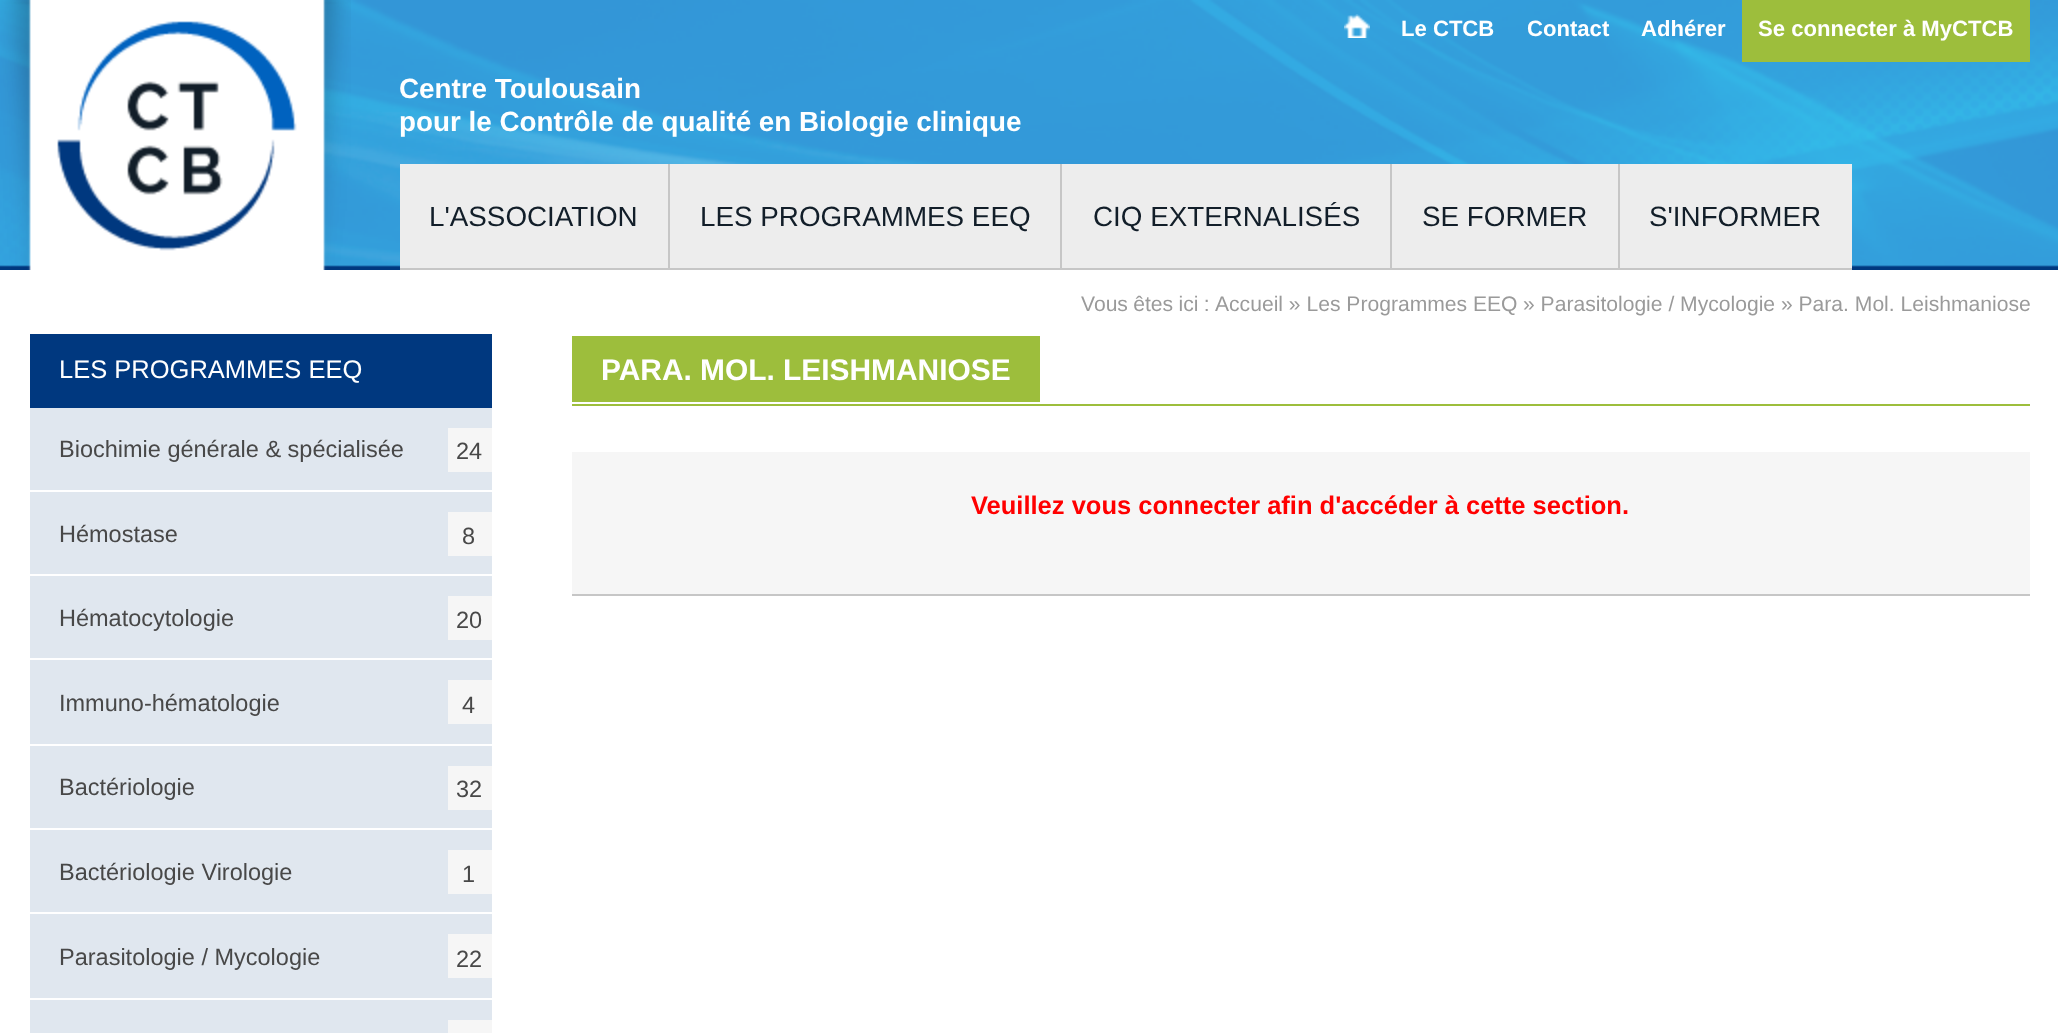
<?xml version="1.0" encoding="UTF-8"?>
<svg xmlns="http://www.w3.org/2000/svg" width="2058" height="1033">
    <rect width="100%" height="100%" fill="#FFFFFF"/>
    <image x="0" y="266" width="2058" height="4" href="img_01.png"/>
    <image x="0" y="0" width="2058" height="266" href="img_02.png"/>
    <image x="0" y="0" width="351" height="270" href="img_03.png"/>
    <image x="1344" y="14" width="26" height="24" href="img_04.png"/>
    <text x="1401" y="36" font-family="Liberation Sans" font-size="22.1" font-weight="700" fill="#FFFFFF">Le CTCB</text>
    <text x="1527" y="36" font-family="Liberation Sans" font-size="22.1" font-weight="700" fill="#FFFFFF">Contact</text>
    <text x="1641" y="36" font-family="Liberation Sans" font-size="22.1" font-weight="700" fill="#FFFFFF">Adhérer</text>
    <rect x="1742" y="0" width="288" height="62" fill="#9DBE3C"/>
    <text x="1758" y="36" font-family="Liberation Sans" font-size="22.1" font-weight="700" fill="#FFFFFF">Se connecter à MyCTCB</text>
    <text font-family="Liberation Sans" font-size="27.8" font-weight="700" fill="#FFFFFF">
        <tspan x="399" y="98">Centre Toulousain</tspan>
        <tspan x="399" y="131">pour le Contrôle de qualité en Biologie clinique</tspan>
    </text>
    <rect x="400" y="164" width="268" height="104" fill="#EDEDED"/>
    <rect x="400" y="268" width="1452" height="2" fill="#C6C6C6"/>
    <text x="429" y="226" font-family="Liberation Sans" font-size="27.8" fill="#121E29">L'ASSOCIATION</text>
    <rect x="670" y="164" width="390" height="104" fill="#EDEDED"/>
    <rect x="668" y="164" width="2" height="106" fill="#C6C6C6"/>
    <text x="700" y="226" font-family="Liberation Sans" font-size="27.8" fill="#121E29">LES PROGRAMMES EEQ</text>
    <rect x="1062" y="164" width="328" height="104" fill="#EDEDED"/>
    <rect x="1060" y="164" width="2" height="106" fill="#C6C6C6"/>
    <text x="1093" y="226" font-family="Liberation Sans" font-size="27.8" fill="#121E29">CIQ EXTERNALISÉS</text>
    <rect x="1392" y="164" width="226" height="104" fill="#EDEDED"/>
    <rect x="1390" y="164" width="2" height="106" fill="#C6C6C6"/>
    <text x="1422" y="226" font-family="Liberation Sans" font-size="27.8" fill="#121E29">SE FORMER</text>
    <rect x="1620" y="164" width="232" height="104" fill="#EDEDED"/>
    <rect x="1618" y="164" width="2" height="106" fill="#C6C6C6"/>
    <text x="1649" y="226" font-family="Liberation Sans" font-size="27.8" fill="#121E29">S'INFORMER</text>
    <text x="1081" y="311" word-spacing="-0.5" font-family="Liberation Sans" font-size="21.1" fill="#9A9A9A">Vous êtes ici :</text>
    <text x="1215" y="311" font-family="Liberation Sans" font-size="21.1" fill="#9A9A9A">Accueil » Les Programmes EEQ</text>
    <text x="1523" y="311" font-family="Liberation Sans" font-size="21.1" fill="#9A9A9A">» Parasitologie / Mycologie » Para. Mol. Leishmaniose</text>
    <rect x="30" y="334" width="462" height="74" fill="#00387F"/>
    <text x="59" y="378" font-family="Liberation Sans" font-size="25.5" fill="#FFFFFF">LES PROGRAMMES EEQ</text>
    <rect x="30" y="408" width="462" height="82" fill="#E0E7EF"/>
    <text x="59" y="457" font-family="Liberation Sans" font-size="23.5" fill="#484848">Biochimie générale &amp; spécialisée</text>
    <rect x="448" y="428" width="44" height="44" fill="#F6F6F6"/>
    <text x="456" y="459" font-family="Liberation Sans" font-size="23.5" fill="#484848">24</text>
    <rect x="30" y="492" width="462" height="82" fill="#E0E7EF"/>
    <text x="59" y="542" font-family="Liberation Sans" font-size="23.5" fill="#484848">Hémostase</text>
    <rect x="448" y="512" width="44" height="44" fill="#F6F6F6"/>
    <text x="462" y="544" font-family="Liberation Sans" font-size="23.5" fill="#484848">8</text>
    <rect x="30" y="576" width="462" height="82" fill="#E0E7EF"/>
    <text x="59" y="626" font-family="Liberation Sans" font-size="23.5" fill="#484848">Hématocytologie</text>
    <rect x="448" y="596" width="44" height="44" fill="#F6F6F6"/>
    <text x="456" y="628" font-family="Liberation Sans" font-size="23.5" fill="#484848">20</text>
    <rect x="30" y="660" width="462" height="84" fill="#E0E7EF"/>
    <text x="59" y="711" font-family="Liberation Sans" font-size="23.5" fill="#484848">Immuno-hématologie</text>
    <rect x="448" y="680" width="44" height="44" fill="#F6F6F6"/>
    <text x="462" y="713" font-family="Liberation Sans" font-size="23.5" fill="#484848">4</text>
    <rect x="30" y="746" width="462" height="82" fill="#E0E7EF"/>
    <text x="59" y="795" font-family="Liberation Sans" font-size="23.5" fill="#484848">Bactériologie</text>
    <rect x="448" y="766" width="44" height="44" fill="#F6F6F6"/>
    <text x="456" y="797" font-family="Liberation Sans" font-size="23.5" fill="#484848">32</text>
    <rect x="30" y="830" width="462" height="82" fill="#E0E7EF"/>
    <text x="59" y="880" font-family="Liberation Sans" font-size="23.5" fill="#484848">Bactériologie Virologie</text>
    <rect x="448" y="850" width="44" height="44" fill="#F6F6F6"/>
    <text x="462" y="882" font-family="Liberation Sans" font-size="23.5" fill="#484848">1</text>
    <rect x="30" y="914" width="462" height="84" fill="#E0E7EF"/>
    <text x="59" y="965" font-family="Liberation Sans" font-size="23.5" fill="#484848">Parasitologie / Mycologie</text>
    <rect x="448" y="934" width="44" height="44" fill="#F6F6F6"/>
    <text x="456" y="967" font-family="Liberation Sans" font-size="23.5" fill="#484848">22</text>
    <rect x="30" y="1000" width="462" height="33" fill="#E0E7EF"/>
    <rect x="448" y="1020" width="44" height="13" fill="#F6F6F6"/>
    <rect x="572" y="404" width="1458" height="2" fill="#9DBE3C"/>
    <rect x="572" y="336" width="468" height="66" fill="#9DBE3C"/>
    <text x="601" y="380" font-family="Liberation Sans" font-size="29.9" font-weight="700" fill="#FFFFFF">PARA. MOL. LEISHMANIOSE</text>
    <rect x="572" y="452" width="1458" height="142" fill="#F6F6F6"/>
    <rect x="572" y="594" width="1458" height="2" fill="#C6C6C6"/>
    <text x="971" y="514" font-family="Liberation Sans" font-size="25.5" font-weight="700" fill="#FF0000">Veuillez vous connecter afin d'accéder à cette section.</text>
</svg>
